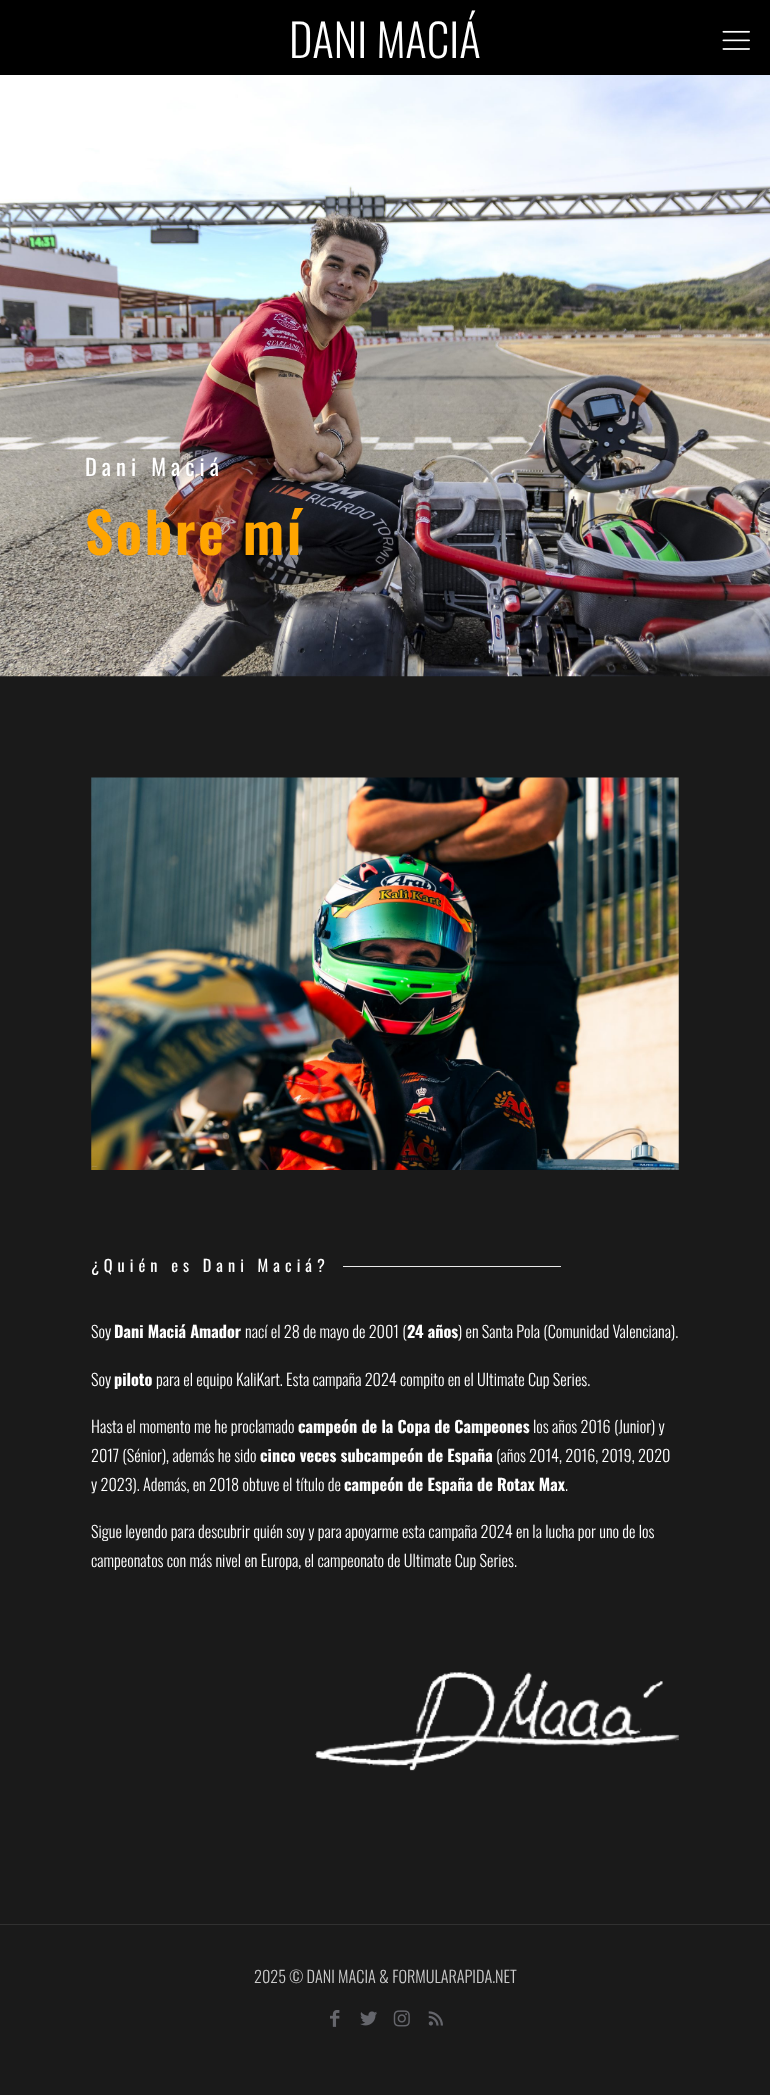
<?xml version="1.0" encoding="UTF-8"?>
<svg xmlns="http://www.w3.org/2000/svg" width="770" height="2095">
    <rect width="100%" height="100%" fill="#1A1A1A"/>
    <rect x="0" y="0" width="770" height="75" fill="#000000"/>
    <text x="289" y="58" font-family="Oswald" font-size="45" font-weight="300" fill="#FFFFFF">DANI MACIÁ</text>
    <image x="722" y="30" width="28" height="20" href="img_01.png"/>
    <image x="0" y="75" width="770" height="602" href="img_02.png"/>
    <text x="85" y="476" font-family="Oswald" font-size="22.5" letter-spacing="5" fill="#FFFFFF">Dani Maciá</text>
    <text x="85" y="555" font-family="Oswald" font-size="56" font-weight="600" letter-spacing="2.5" fill="#FFA500">Sobre mí</text>
    <image x="91" y="777" width="588" height="393" href="img_03.png"/>
    <text x="91" y="1272" font-family="Oswald" font-size="16.25" letter-spacing="5" fill="#FFFFFF">¿Quién es Dani Maciá?</text>
    <rect x="343" y="1266" width="218" height="1" fill="#EBEBEB"/>
    <text x="91" y="1338" font-family="Oswald" font-size="16.25" font-weight="300" fill="#FFFFFF">Soy</text>
    <text x="114" y="1338" font-family="Oswald" font-size="16.25" font-weight="700" fill="#FFFFFF">Dani Maciá Amador</text>
    <text x="245" y="1338" font-family="Oswald" font-size="16.25" font-weight="300" fill="#FFFFFF">nací el 28 de mayo de 2001 (</text>
    <text x="407" y="1338" font-family="Oswald" font-size="16.25" font-weight="700" fill="#FFFFFF">24 años</text>
    <text x="458" y="1338" font-family="Oswald" font-size="16.25" font-weight="300" fill="#FFFFFF">) en Santa Pola (Comunidad Valenciana).</text>
    <text x="91" y="1386" font-family="Oswald" font-size="16.25" font-weight="300" fill="#FFFFFF">Soy</text>
    <text x="114" y="1386" font-family="Oswald" font-size="16.25" font-weight="700" fill="#FFFFFF">piloto</text>
    <text x="156" y="1386" font-family="Oswald" font-size="16.25" font-weight="300" fill="#FFFFFF">para el equipo KaliKart. Esta campaña 2024 compito en el Ultimate Cup Series.</text>
    <text x="91" y="1433" font-family="Oswald" font-size="16.25" font-weight="300" fill="#FFFFFF">Hasta el momento me he proclamado</text>
    <text x="298" y="1433" font-family="Oswald" font-size="16.25" font-weight="700" fill="#FFFFFF">campeón de la Copa de Campeones</text>
    <text x="533" y="1433" font-family="Oswald" font-size="16.25" font-weight="300" fill="#FFFFFF">los años 2016 (Junior) y</text>
    <text x="91" y="1462" font-family="Oswald" font-size="16.25" font-weight="300" fill="#FFFFFF">2017 (Sénior), además he sido</text>
    <text x="260" y="1462" font-family="Oswald" font-size="16.25" font-weight="700" fill="#FFFFFF">cinco veces subcampeón de España</text>
    <text x="496" y="1462" font-family="Oswald" font-size="16.25" font-weight="300" fill="#FFFFFF">(años 2014, 2016, 2019, 2020</text>
    <text x="91" y="1491" font-family="Oswald" font-size="16.25" font-weight="300" fill="#FFFFFF">y 2023). Además, en 2018 obtuve el título de</text>
    <text x="344" y="1491" font-family="Oswald" font-size="16.25" font-weight="700" fill="#FFFFFF">campeón de España de Rotax Max</text>
    <text x="565" y="1491" font-family="Oswald" font-size="16.25" font-weight="300" fill="#FFFFFF">.</text>
    <text font-family="Oswald" font-size="16.25" font-weight="300" fill="#FFFFFF">
        <tspan x="91" y="1538">Sigue leyendo para descubrir quién soy y para apoyarme esta campaña 2024 en la lucha por uno de los</tspan>
        <tspan x="91" y="1567">campeonatos con más nivel en Europa, el campeonato de Ultimate Cup Series.</tspan>
    </text>
    <image x="314" y="1671" width="365" height="100" href="img_04.png"/>
    <rect x="0" y="1924" width="770" height="1" fill="#313131"/>
    <text x="254" y="1983" font-family="Oswald" font-size="16.25" font-weight="300" fill="#CCCCCC">2025 © DANI MACIA &amp; FORMULARAPIDA.NET</text>
    <image x="330" y="2010" width="10" height="17" href="img_05.png"/>
    <image x="360" y="2011" width="17" height="15" href="img_06.png"/>
    <image x="393" y="2010" width="17" height="17" href="img_07.png"/>
    <image x="428" y="2011" width="15" height="15" href="img_08.png"/>
</svg>
